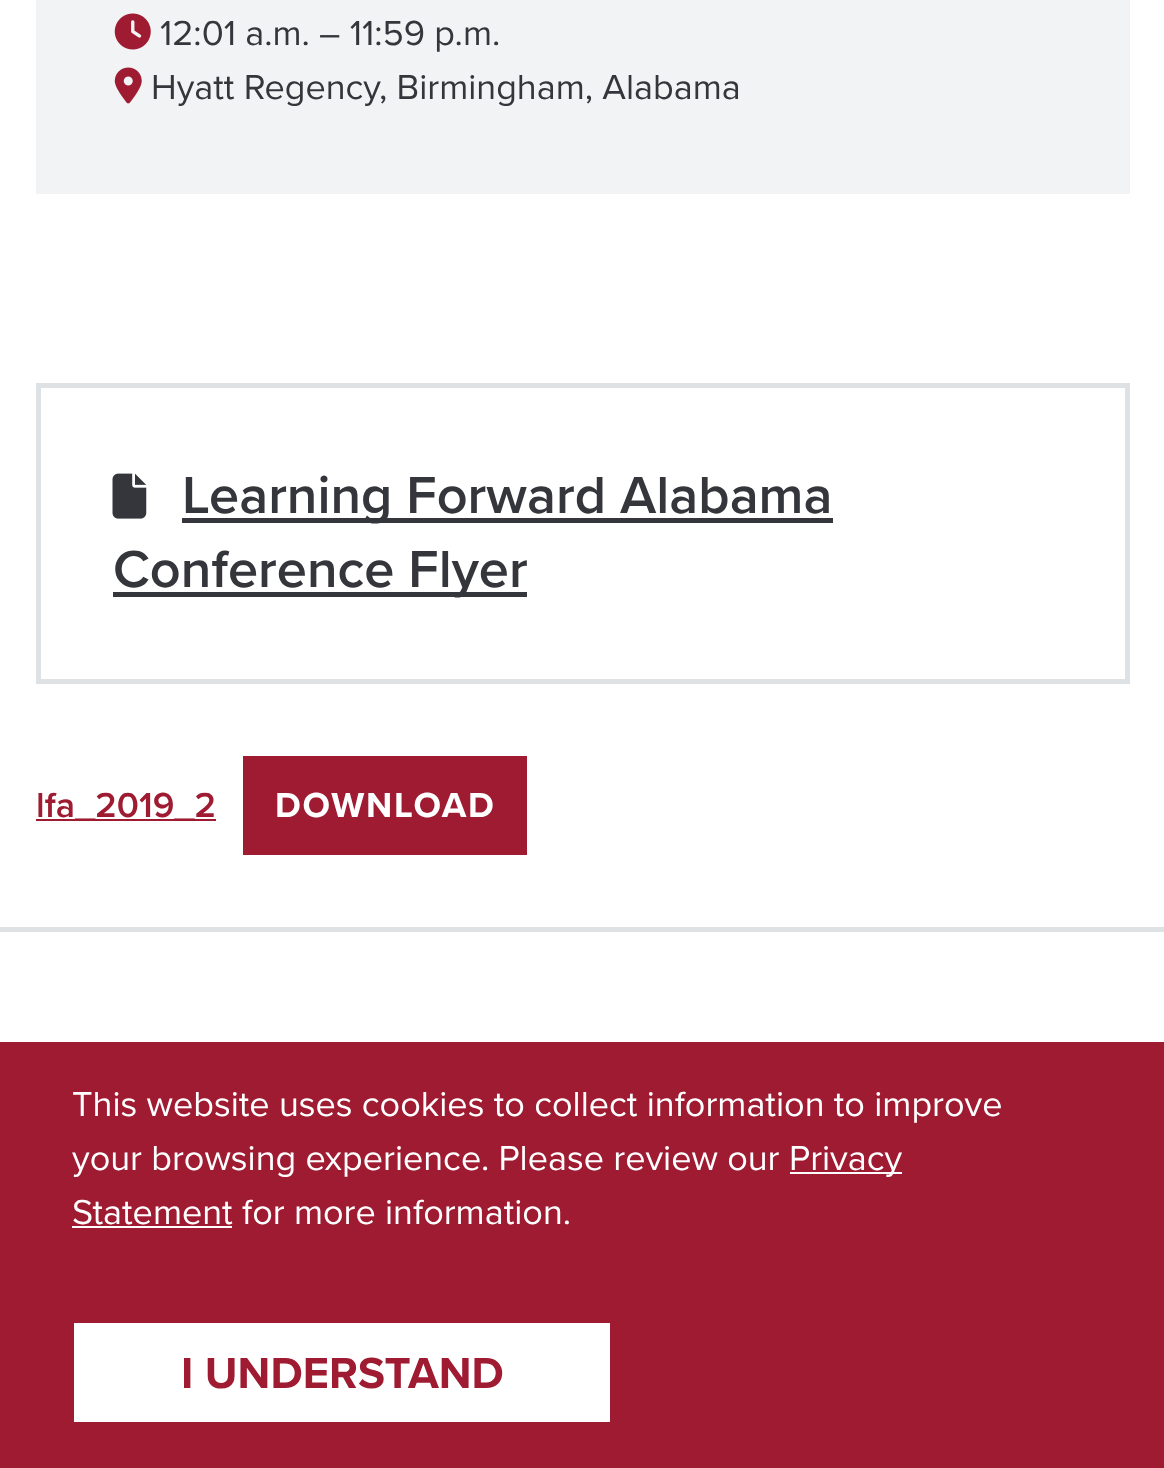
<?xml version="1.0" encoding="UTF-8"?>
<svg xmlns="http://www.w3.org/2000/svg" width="1164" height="1468">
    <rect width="100%" height="100%" fill="#FFFFFF"/>
    <rect x="36" y="0" width="1094" height="194" fill="#F2F3F4"/>
    <image x="114" y="13" width="37" height="37" href="img_01.png"/>
    <text x="160" y="45" font-family="Proxima Nova" font-size="36" fill="#35363B">12:01 a.m. – 11:59 p.m.</text>
    <image x="114" y="67" width="28" height="37" href="img_02.png"/>
    <text x="151" y="99" font-family="Proxima Nova" font-size="36" fill="#35363B">Hyatt Regency, Birmingham, Alabama</text>
    <rect x="38.5" y="385.5" width="1089" height="296" fill="none" stroke="#DFE2E5" stroke-width="5"/>
    <image x="112" y="473" width="35" height="46" href="img_03.png"/>
    <rect x="182" y="518" width="651" height="5" fill="#35363B"/>
    <text x="182" y="513" font-family="Proxima Nova" font-size="54" font-weight="600" fill="#35363B">Learning Forward Alabama</text>
    <rect x="113" y="592" width="414" height="5" fill="#35363B"/>
    <text x="113" y="587" font-family="Proxima Nova" font-size="54" font-weight="600" fill="#35363B">Conference Flyer</text>
    <rect x="36" y="819" width="180" height="2" fill="#9E1B32"/>
    <text x="36" y="817" font-family="Proxima Nova" font-size="36" font-weight="600" fill="#9E1B32">lfa_2019_2</text>
    <rect x="243" y="756" width="284" height="99" fill="#9E1B32"/>
    <text x="275" y="817" font-family="Proxima Nova" font-size="36" font-weight="700" letter-spacing="1.75" fill="#FFFFFF">DOWNLOAD</text>
    <rect x="0" y="927" width="1164" height="5" fill="#DFE2E5"/>
    <rect x="0" y="1042" width="1164" height="426" fill="#9E1B32"/>
    <text font-family="Proxima Nova" font-size="36" fill="#FFFFFF">
        <tspan x="72" y="1116">This website uses cookies to collect information to improve</tspan>
        <tspan x="72" y="1170">your browsing experience. Please review our</tspan>
    </text>
    <rect x="790" y="1172" width="112" height="2" fill="#FFFFFF"/>
    <text x="789" y="1170" font-family="Proxima Nova" font-size="36" fill="#FFFFFF">Privacy</text>
    <text x="72" y="1224" font-family="Proxima Nova" font-size="36" fill="#FFFFFF">Statement for more information.</text>
    <rect x="72" y="1226" width="160" height="2" fill="#FFFFFF"/>
    <rect x="74" y="1323" width="536" height="99" fill="#FFFFFF"/>
    <text x="181" y="1388" font-family="Proxima Nova" font-size="45" font-weight="700" fill="#9E1B32">I UNDERSTAND</text>
</svg>
